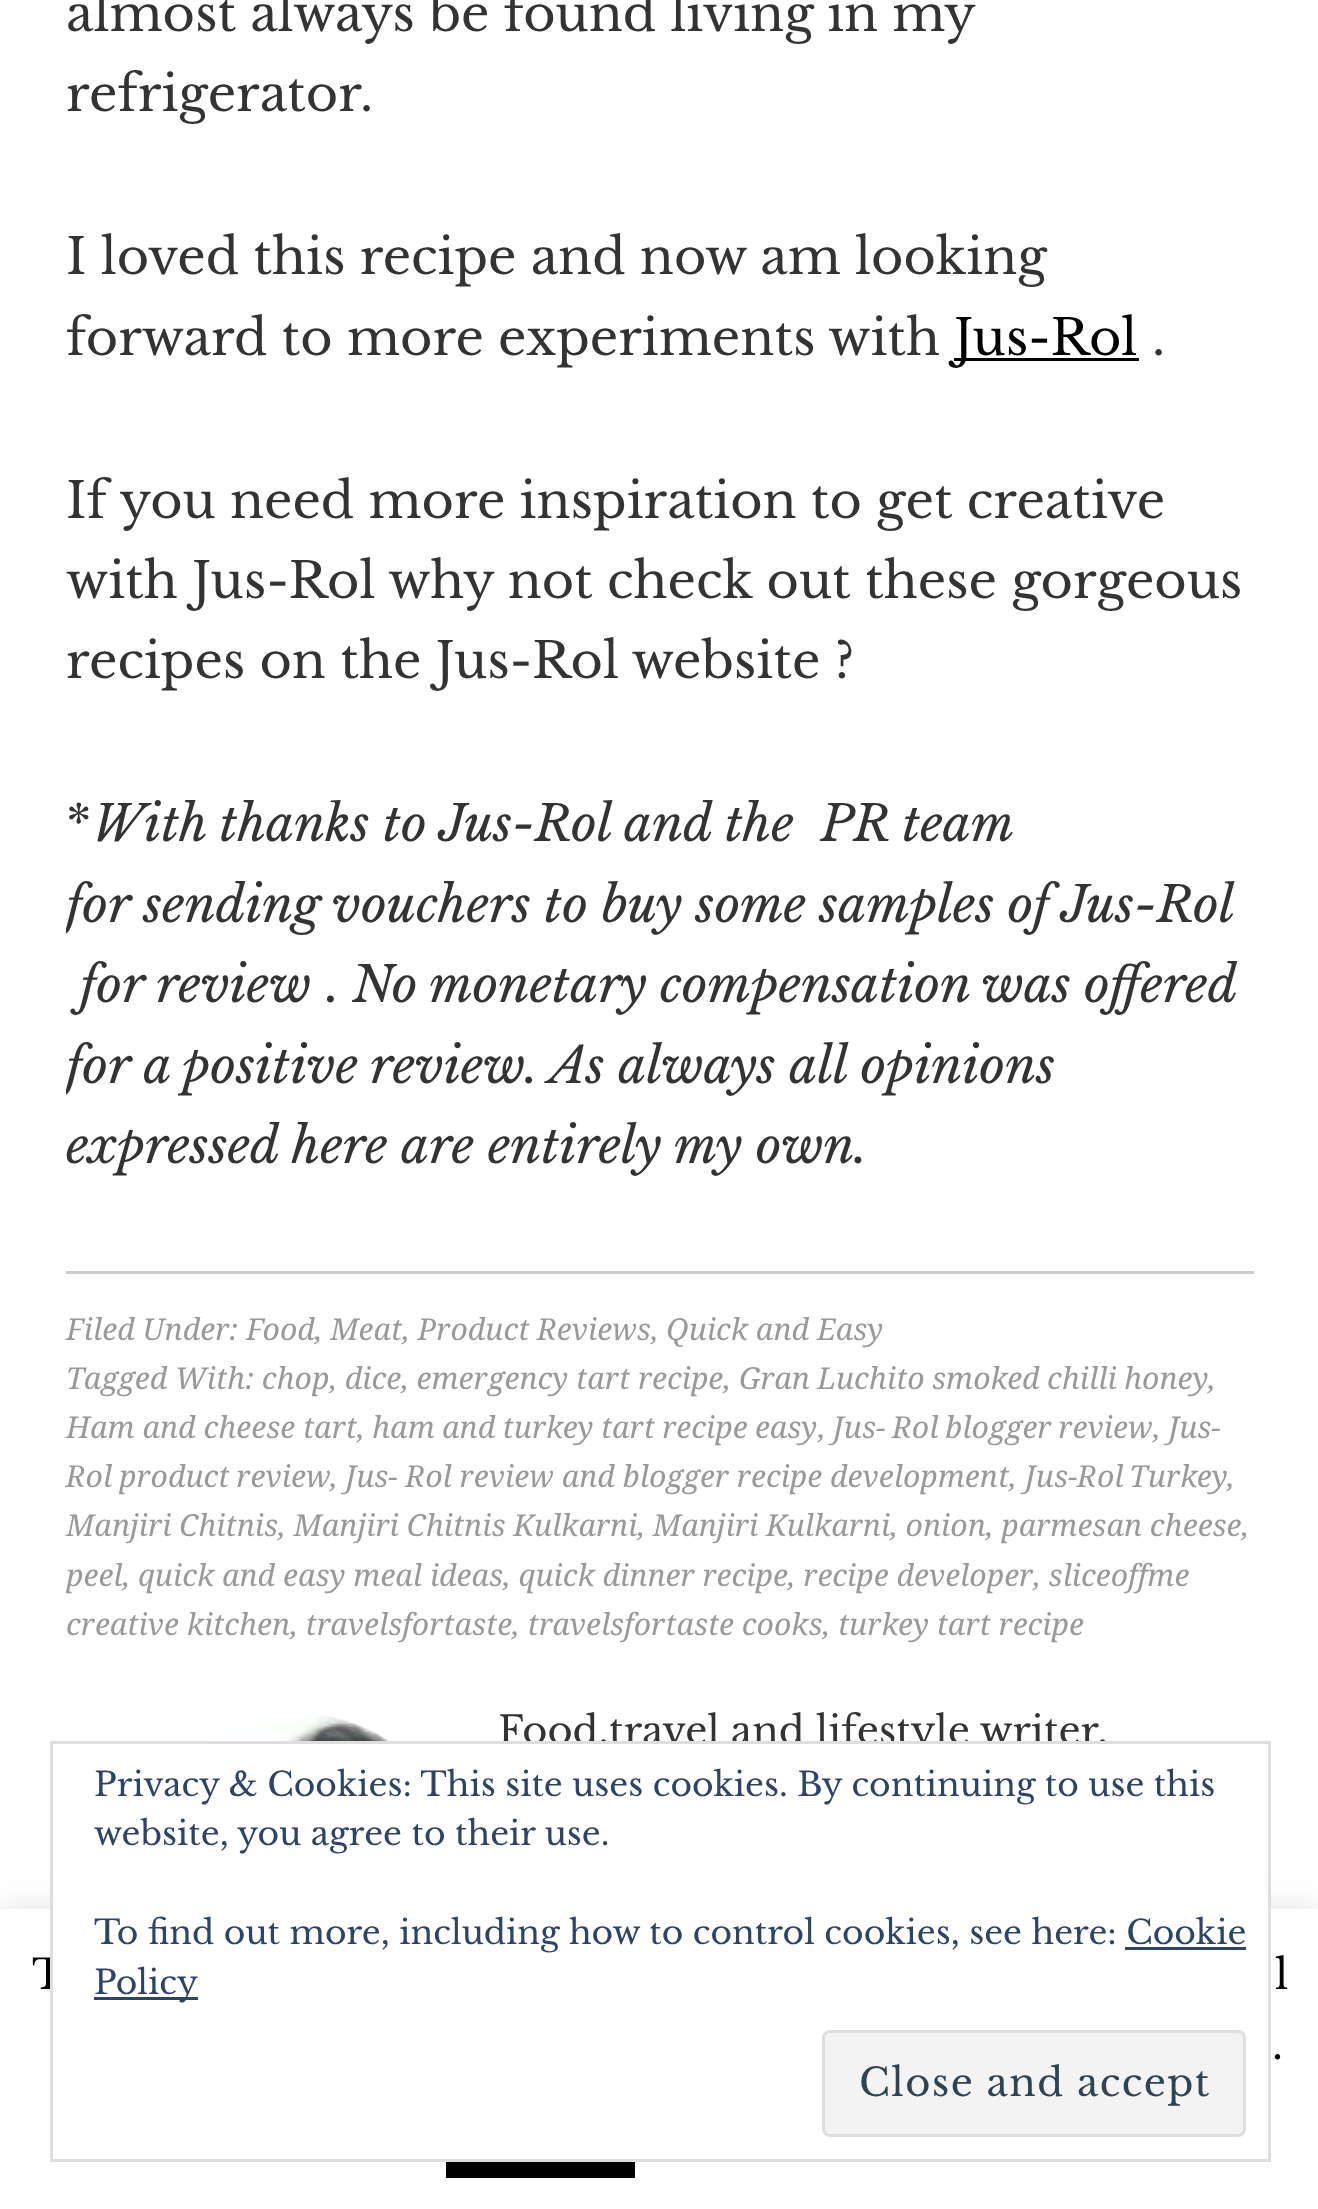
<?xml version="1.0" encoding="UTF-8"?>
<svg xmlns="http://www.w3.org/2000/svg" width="1318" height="2209">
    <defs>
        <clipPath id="clip1"><rect x="66" y="0" width="1188" height="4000"/></clipPath>
        <filter id="blur1" x="-50%" y="-200%" width="200%" height="500%"><feGaussianBlur stdDeviation="14"/></filter>
    </defs>
    <rect width="100%" height="100%" fill="#FFFFFF"/>
    <text font-family="Libre Baskerville" font-size="49.5" fill="#333333">
        <tspan x="66" y="31" word-spacing="-0.25">almost always be found living in my</tspan>
        <tspan x="66" y="111">refrigerator.</tspan>
    </text>
    <text font-family="Libre Baskerville" font-size="49.5" fill="#333333">
        <tspan x="66" y="274">I loved this recipe and now am looking</tspan>
        <tspan x="66" y="355">forward to more experiments with</tspan>
    </text>
    <rect x="954" y="358" width="185" height="3" fill="#010101"/>
    <text x="954" y="355" font-family="Libre Baskerville" font-size="49.5" fill="#010101">Jus-Rol</text>
    <text x="1152" y="355" font-family="Libre Baskerville" font-size="49.5" fill="#333333">.</text>
    <text font-family="Libre Baskerville" font-size="49.5" fill="#333333">
        <tspan x="66" y="518">If you need more inspiration to get creative</tspan>
        <tspan x="66" y="598">with Jus-Rol why not check out these gorgeous</tspan>
        <tspan x="66" y="678">recipes on the Jus-Rol website ?</tspan>
    </text>
    <text x="66" y="841" font-family="Libre Baskerville" font-size="49.5" fill="#333333">*</text>
    <text x="92" y="841" word-spacing="-0.25" font-family="Libre Baskerville" font-size="49.5" font-style="italic" fill="#333333" xml:space="preserve">With thanks to Jus-Rol and the  PR team</text>
    <g clip-path="url(#clip1)">
        <text x="66" y="922" word-spacing="-0.25" font-family="Libre Baskerville" font-size="49.5" font-style="italic" fill="#333333">for sending vouchers to buy some samples of Jus-Rol</text>
    </g>
    <text x="80" y="1002" font-family="Libre Baskerville" font-size="49.5" font-style="italic" fill="#333333">for review</text>
    <text x="327" y="1002" word-spacing="-0.5" font-family="Libre Baskerville" font-size="49.5" font-style="italic" fill="#333333">. No monetary compensation was offered</text>
    <g clip-path="url(#clip1)">
        <text x="66" y="1083" font-family="Libre Baskerville" font-size="49.5" font-style="italic" fill="#333333">for a positive review. As always all opinions</text>
    </g>
    <text x="66" y="1163" font-family="Libre Baskerville" font-size="49.5" font-style="italic" fill="#333333">expressed here are entirely my own.</text>
    <rect x="66" y="1271" width="1188" height="3" fill="#CCCCCC"/>
    <text font-family="Droid Serif" font-size="30.25" font-style="italic" fill="#999999">
        <tspan x="66" y="1340">Filed Under: Food, Meat, Product Reviews, Quick and Easy</tspan>
        <tspan x="66" y="1389">Tagged With: chop, dice, emergency tart recipe,</tspan>
    </text>
    <text x="739" y="1389" word-spacing="-0.5" font-family="Droid Serif" font-size="30.25" font-style="italic" fill="#999999">Gran Luchito smoked chilli honey</text>
    <text x="1208" y="1389" font-family="Droid Serif" font-size="30.25" font-style="italic" fill="#999999">,</text>
    <text x="66" y="1438" font-family="Droid Serif" font-size="30.25" font-style="italic" fill="#999999">Ham and cheese tart,</text>
    <text x="372" y="1438" word-spacing="-0.5" font-family="Droid Serif" font-size="30.25" font-style="italic" fill="#999999">ham and turkey tart recipe easy</text>
    <text x="818" y="1438" font-family="Droid Serif" font-size="30.25" font-style="italic" fill="#999999">,</text>
    <text x="833" y="1438" word-spacing="-1" font-family="Droid Serif" font-size="30.25" font-style="italic" fill="#999999">Jus- Rol blogger review</text>
    <text x="1153" y="1438" font-family="Droid Serif" font-size="30.25" font-style="italic" fill="#999999">, Jus-</text>
    <text x="66" y="1487" word-spacing="-1" font-family="Droid Serif" font-size="30.25" font-style="italic" fill="#999999">Rol product review</text>
    <text x="330" y="1487" font-family="Droid Serif" font-size="30.25" font-style="italic" fill="#999999">, Jus- Rol review and blogger recipe development,</text>
    <text x="1025" y="1487" word-spacing="-2" font-family="Droid Serif" font-size="30.25" font-style="italic" fill="#999999">Jus-Rol Turkey</text>
    <text x="1227" y="1487" font-family="Droid Serif" font-size="30.25" font-style="italic" fill="#999999">,</text>
    <text font-family="Droid Serif" font-size="30.25" font-style="italic" fill="#999999">
        <tspan x="66" y="1536">Manjiri Chitnis, Manjiri Chitnis Kulkarni, Manjiri Kulkarni, onion, parmesan cheese,</tspan>
        <tspan x="66" y="1586">peel, quick and easy meal ideas, quick dinner recipe, recipe developer, sliceoffme</tspan>
        <tspan x="66" y="1635">creative kitchen, travelsfortaste, travelsfortaste cooks, turkey tart recipe</tspan>
    </text>
    <image x="207" y="1714" width="183" height="27" href="img_01.png"/>
    <text x="498" y="1744" font-family="Libre Baskerville" font-size="38.5" fill="#333333">Food,travel and lifestyle writer.</text>
    <rect x="0" y="1906" width="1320" height="302" fill="#ACABAB" fill-opacity="0.3" filter="url(#blur1)"/>
    <rect x="0" y="1909" width="1318" height="300" fill="#FFFFFF"/>
    <text x="32" y="1989" font-family="Libre Baskerville" font-size="41" fill="#010101">T</text>
    <rect x="53" y="1744" width="1215" height="245" fill="#FFFFFF"/>
    <rect x="51.5" y="1742.5" width="1218" height="418" fill="none" stroke="#DEDEDE" stroke-width="3"/>
    <text font-family="Libre Baskerville" font-size="33" fill="#2E4467">
        <tspan x="94" y="1796">Privacy &amp; Cookies: This site uses cookies. By continuing to use this</tspan>
        <tspan x="94" y="1845">website, you agree to their use.</tspan>
    </text>
    <text x="94" y="1944" font-family="Libre Baskerville" font-size="33" fill="#2E4467">To find out more, including how to control cookies, see here: Cookie</text>
    <rect x="94" y="1997" width="104" height="3" fill="#2E4467"/>
    <text x="94" y="1994" font-family="Libre Baskerville" font-size="33" fill="#2E4467">Policy</text>
    <rect x="1125" y="1947" width="121" height="3" fill="#2E4467"/>
    <rect x="823.5" y="2031.5" width="421" height="104" rx="6.5" fill="#F3F3F3" stroke="#DEDEDE" stroke-width="3"/>
    <text x="859" y="2096" font-family="Libre Baskerville" font-size="38.5" letter-spacing="1.4" fill="#2E4453">Close and accept</text>
    <text x="1275" y="1989" font-family="Libre Baskerville" font-size="41" fill="#010101">l</text>
    <text x="1272" y="2059" font-family="Libre Baskerville" font-size="41" fill="#010101">.</text>
    <rect x="446" y="2162" width="189" height="16" fill="#000000"/>
</svg>
